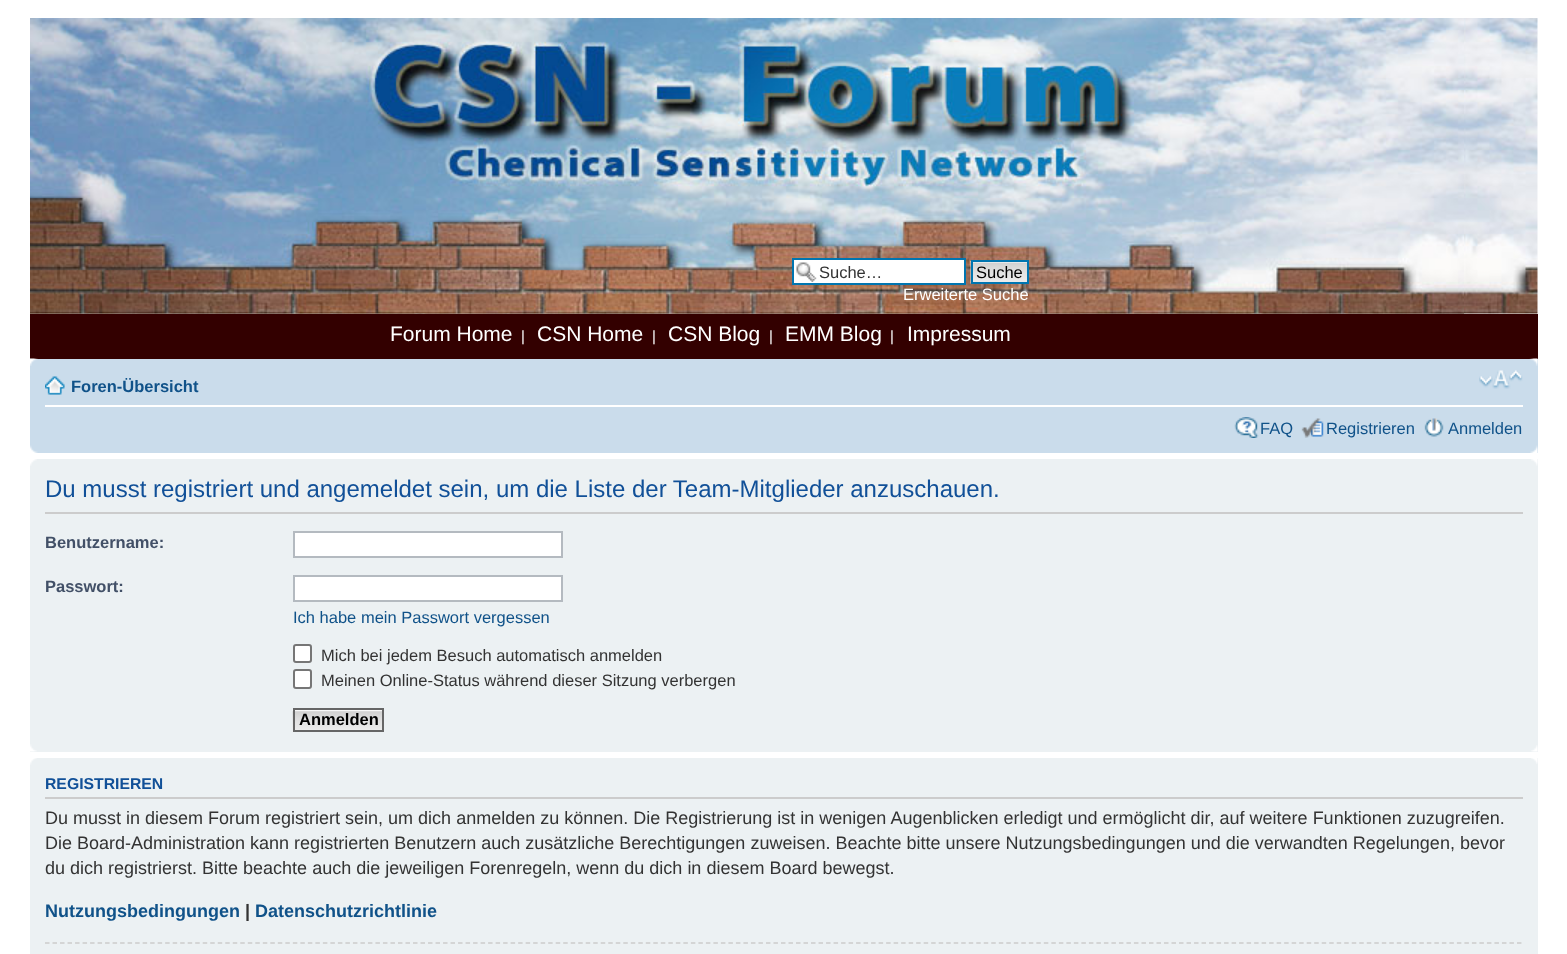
<?xml version="1.0" encoding="UTF-8"?>
<svg xmlns="http://www.w3.org/2000/svg" width="1567" height="954">
    <rect width="100%" height="100%" fill="#FFFFFF"/>
    <image x="30" y="18" width="1508" height="296" href="img_01.png"/>
    <image x="30" y="18" width="1434" height="296" href="img_02.png"/>
    <rect x="794" y="260" width="170" height="23" fill="#FFFFFF"/>
    <image x="796" y="262" width="21" height="20" href="img_03.png"/>
    <rect x="793" y="259" width="172" height="25" fill="none" stroke="#0075B0" stroke-width="2"/>
    <text x="819" y="278" font-family="Liberation Sans" font-size="16.5" fill="#333333">Suche…</text>
    <image x="970" y="261" width="57" height="23" href="img_04.png"/>
    <rect x="972" y="261" width="56" height="22" fill="none" stroke="#0075B0" stroke-width="2"/>
    <text x="976" y="278" font-family="Liberation Sans" font-size="16.5" fill="#000000">Suche</text>
    <text x="903" y="300" font-family="Liberation Sans" font-size="16.5" fill="#FFFFFF">Erweiterte Suche</text>
    <rect x="30" y="314" width="1508" height="45" fill="#330000"/>
    <text x="390" y="341" font-family="Liberation Sans" font-size="21" fill="#FFFFFF">Forum Home</text>
    <text x="521" y="341" font-family="Liberation Sans" font-size="15" fill="#FFFFFF">|</text>
    <text x="537" y="341" font-family="Liberation Sans" font-size="21" fill="#FFFFFF">CSN Home</text>
    <text x="652" y="341" font-family="Liberation Sans" font-size="15" fill="#FFFFFF">|</text>
    <text x="668" y="341" font-family="Liberation Sans" font-size="21" fill="#FFFFFF">CSN Blog</text>
    <text x="769" y="341" font-family="Liberation Sans" font-size="15" fill="#FFFFFF">|</text>
    <text x="785" y="341" font-family="Liberation Sans" font-size="21" fill="#FFFFFF">EMM Blog</text>
    <text x="890" y="341" font-family="Liberation Sans" font-size="15" fill="#FFFFFF">|</text>
    <text x="907" y="341" font-family="Liberation Sans" font-size="21" fill="#FFFFFF">Impressum</text>
    <rect x="30" y="359" width="1508" height="94" fill="#CADCEB"/>
    <image x="30" y="358" width="8" height="8" href="img_05.png"/>
    <image x="1529" y="358" width="9" height="8" href="img_06.png"/>
    <rect x="45" y="405" width="1478" height="2" fill="#FFFFFF"/>
    <image x="45" y="376" width="20" height="19" href="img_07.png"/>
    <text x="71" y="392" font-family="Liberation Sans" font-size="16.5" font-weight="700" fill="#105289">Foren-Übersicht</text>
    <image x="1479" y="370" width="44" height="19" href="img_08.png"/>
    <image x="1234" y="417" width="25" height="21" href="img_09.png"/>
    <text x="1260" y="434" font-family="Liberation Sans" font-size="16.5" fill="#105289">FAQ</text>
    <image x="1301" y="418" width="23" height="20" href="img_10.png"/>
    <text x="1326" y="434" font-family="Liberation Sans" font-size="16.5" fill="#105289">Registrieren</text>
    <image x="1424" y="418" width="20" height="19" href="img_11.png"/>
    <text x="1448" y="434" font-family="Liberation Sans" font-size="16.5" fill="#105289">Anmelden</text>
    <image x="30" y="445" width="8" height="8" href="img_12.png"/>
    <image x="1530" y="445" width="8" height="8" href="img_13.png"/>
    <rect x="30" y="459" width="1508" height="293" fill="#ECF1F3"/>
    <image x="30" y="459" width="7" height="7" href="img_14.png"/>
    <image x="1531" y="459" width="7" height="7" href="img_15.png"/>
    <rect x="45" y="512" width="1478" height="2" fill="#CCCCCC"/>
    <text x="45" y="497" font-family="Liberation Sans" font-size="24" fill="#115098">Du musst registriert und angemeldet sein, um die Liste der Team-Mitglieder anzuschauen.</text>
    <text x="45" y="548" font-family="Liberation Sans" font-size="16.5" font-weight="700" fill="#425067">Benutzername:</text>
    <rect x="294" y="532" width="268" height="25" fill="#FFFFFF" stroke="#B4BAC0" stroke-width="2"/>
    <text x="45" y="592" font-family="Liberation Sans" font-size="16.5" font-weight="700" fill="#425067">Passwort:</text>
    <rect x="294" y="576" width="268" height="25" fill="#FFFFFF" stroke="#B4BAC0" stroke-width="2"/>
    <text x="293" y="623" font-family="Liberation Sans" font-size="16.5" fill="#105289">Ich habe mein Passwort vergessen</text>
    <rect x="294" y="645" width="17" height="17" rx="2" fill="#FFFFFF" stroke="#767676" stroke-width="2"/>
    <text x="321" y="661" font-family="Liberation Sans" font-size="16.5" fill="#333333">Mich bei jedem Besuch automatisch anmelden</text>
    <rect x="294" y="670" width="17" height="18" rx="2" fill="#FFFFFF" stroke="#767676" stroke-width="2"/>
    <text x="321" y="686" font-family="Liberation Sans" font-size="16.5" fill="#333333">Meinen Online-Status während dieser Sitzung verbergen</text>
    <image x="292" y="709" width="90" height="23" href="img_16.png"/>
    <rect x="294" y="709" width="89" height="22" fill="none" stroke="#666666" stroke-width="2"/>
    <text x="299" y="725" font-family="Liberation Sans" font-size="16.5" font-weight="700" fill="#000000">Anmelden</text>
    <image x="30" y="744" width="7" height="8" href="img_17.png"/>
    <image x="1531" y="745" width="7" height="7" href="img_18.png"/>
    <rect x="30" y="758" width="1508" height="196" fill="#ECF1F3"/>
    <image x="30" y="758" width="7" height="7" href="img_19.png"/>
    <image x="1531" y="758" width="7" height="6" href="img_20.png"/>
    <rect x="45" y="797" width="1478" height="2" fill="#CCCCCC"/>
    <text x="45" y="789" font-family="Liberation Sans" font-size="15.75" font-weight="700" fill="#115098">REGISTRIEREN</text>
    <text font-family="Liberation Sans" font-size="18" fill="#333333">
        <tspan x="45" y="824">Du musst in diesem Forum registriert sein, um dich anmelden zu können. Die Registrierung ist in wenigen Augenblicken erledigt und ermöglicht dir, auf weitere Funktionen zuzugreifen.</tspan>
        <tspan x="45" y="849">Die Board-Administration kann registrierten Benutzern auch zusätzliche Berechtigungen zuweisen. Beachte bitte unsere Nutzungsbedingungen und die verwandten Regelungen, bevor</tspan>
        <tspan x="45" y="874">du dich registrierst. Bitte beachte auch die jeweiligen Forenregeln, wenn du dich in diesem Board bewegst.</tspan>
    </text>
    <text x="45" y="917" font-family="Liberation Sans" font-size="18" font-weight="700" fill="#105289">Nutzungsbedingungen</text>
    <text x="245" y="917" font-family="Liberation Sans" font-size="18" font-weight="700" fill="#333333">|</text>
    <text x="255" y="917" font-family="Liberation Sans" font-size="18" font-weight="700" fill="#105289">Datenschutzrichtlinie</text>
    <path d="M 45 943 H 1522.5" fill="none" stroke="#CCCCCC" stroke-width="1.5" stroke-dasharray="4.5 3.01"/>
</svg>
